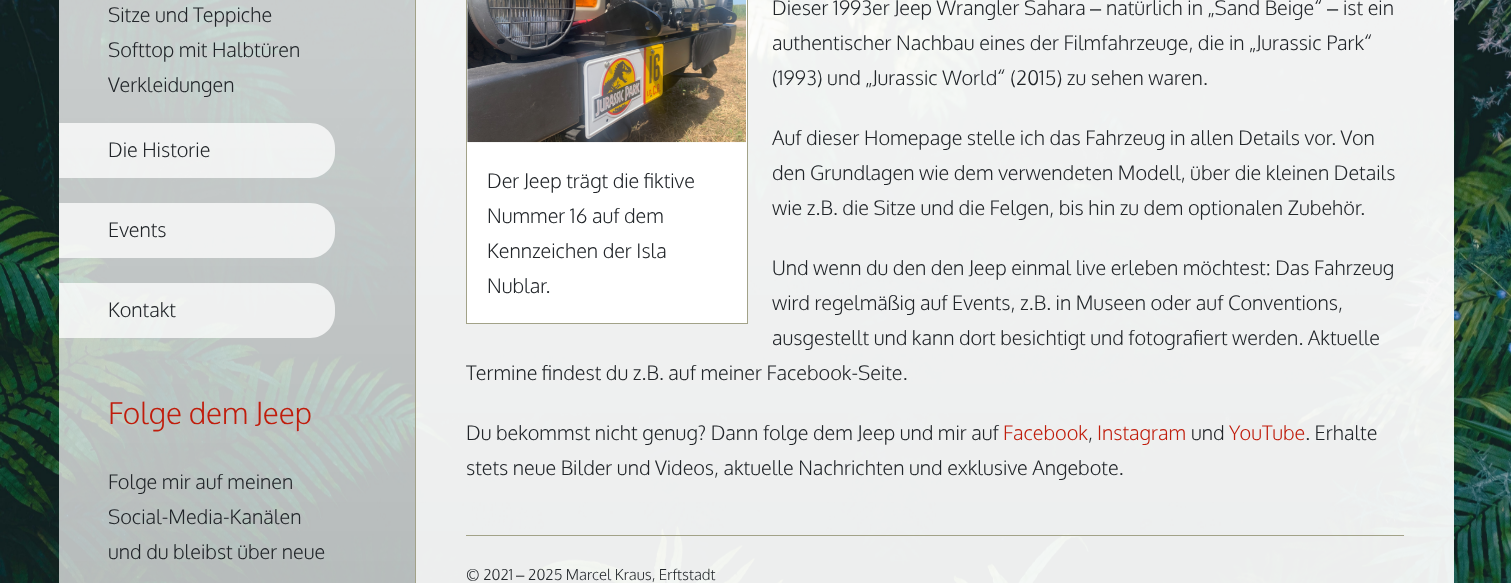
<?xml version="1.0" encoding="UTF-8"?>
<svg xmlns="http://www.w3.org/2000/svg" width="1511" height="583">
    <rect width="100%" height="100%" fill="#FFFFFF"/>
    <image x="0" y="0" width="1511" height="583" href="img_01.png"/>
    <text font-family="Oxygen" font-size="20" font-weight="300" fill="#212529">
        <tspan x="108" y="22">Sitze und Teppiche</tspan>
        <tspan x="108" y="57">Softtop mit Halbtüren</tspan>
        <tspan x="108" y="92">Verkleidungen</tspan>
    </text>
    <path d="M 59 123 H 310 C 324 123 335 134 335 148 V 153 C 335 167 324 178 310 178 H 59 Z" fill="#FFFFFF" fill-opacity="0.75"/>
    <text x="108" y="157" font-family="Oxygen" font-size="20" font-weight="300" fill="#212529">Die Historie</text>
    <path d="M 59 203 H 310 C 324 203 335 214 335 228 V 233 C 335 247 324 258 310 258 H 59 Z" fill="#FFFFFF" fill-opacity="0.75"/>
    <text x="108" y="237" font-family="Oxygen" font-size="20" font-weight="300" fill="#212529">Events</text>
    <path d="M 59 283 H 310 C 324 283 335 294 335 308 V 313 C 335 327 324 338 310 338 H 59 Z" fill="#FFFFFF" fill-opacity="0.75"/>
    <text x="108" y="317" font-family="Oxygen" font-size="20" font-weight="300" fill="#212529">Kontakt</text>
    <text x="108" y="424" font-family="Oxygen" font-size="30" font-weight="300" fill="#C01D0C">Folge dem Jeep</text>
    <text font-family="Oxygen" font-size="20" font-weight="300" fill="#212529">
        <tspan x="108" y="489">Folge mir auf meinen</tspan>
        <tspan x="108" y="524">Social-Media-Kanälen</tspan>
        <tspan x="108" y="559">und du bleibst über neue</tspan>
    </text>
    <rect x="416" y="0" width="1038" height="583" fill="#FFFFFF" fill-opacity="0.75"/>
    <rect x="415" y="0" width="1" height="583" fill="#A2A288"/>
    <text x="772" y="15" font-family="Oxygen" font-size="20" font-weight="300" fill="#212529">Dieser 1993er Jeep Wrangler Sahara</text>
    <text x="1090" y="15" font-family="Liberation Sans" font-size="20" fill="#212529">–</text>
    <text x="1106" y="15" font-family="Oxygen" font-size="20" font-weight="300" fill="#212529">natürlich in „Sand Beige“</text>
    <text x="1327" y="15" font-family="Liberation Sans" font-size="20" fill="#212529">–</text>
    <text x="1343" y="15" font-family="Oxygen" font-size="20" font-weight="300" fill="#212529">ist ein</text>
    <text font-family="Oxygen" font-size="20" font-weight="300" fill="#212529">
        <tspan x="772" y="50">authentischer Nachbau eines der Filmfahrzeuge, die in „Jurassic Park“</tspan>
        <tspan x="772" y="85">(1993) und „Jurassic World“ (2015) zu sehen waren.</tspan>
    </text>
    <rect x="466.5" y="-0.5" width="281" height="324" fill="#FFFFFF" stroke="#A2A288"/>
    <image x="467" y="0" width="279" height="143" href="img_02.png"/>
    <text font-family="Oxygen" font-size="20" font-weight="300" fill="#212529">
        <tspan x="487" y="188">Der Jeep trägt die fiktive</tspan>
        <tspan x="487" y="223">Nummer 16 auf dem</tspan>
        <tspan x="487" y="258">Kennzeichen der Isla</tspan>
        <tspan x="487" y="293">Nublar.</tspan>
    </text>
    <text font-family="Oxygen" font-size="20" font-weight="300" fill="#212529">
        <tspan x="772" y="145">Auf dieser Homepage stelle ich das Fahrzeug in allen Details vor. Von</tspan>
        <tspan x="772" y="180">den Grundlagen wie dem verwendeten Modell, über die kleinen Details</tspan>
        <tspan x="772" y="215">wie z.B. die Sitze und die Felgen, bis hin zu dem optionalen Zubehör.</tspan>
    </text>
    <text font-family="Oxygen" font-size="20" font-weight="300" fill="#212529">
        <tspan x="772" y="275">Und wenn du den den Jeep einmal live erleben möchtest: Das Fahrzeug</tspan>
        <tspan x="772" y="310">wird regelmäßig auf Events, z.B. in Museen oder auf Conventions,</tspan>
        <tspan x="772" y="345">ausgestellt und kann dort besichtigt und fotografiert werden. Aktuelle</tspan>
    </text>
    <text x="466" y="380" font-family="Oxygen" font-size="20" font-weight="300" fill="#212529">Termine findest du z.B. auf meiner Facebook-Seite.</text>
    <text x="466" y="440" font-family="Oxygen" font-size="20" font-weight="300" fill="#212529">Du bekommst nicht genug? Dann folge dem Jeep und mir auf</text>
    <text x="1003" y="440" font-family="Oxygen" font-size="20" font-weight="300" fill="#C01D0C">Facebook</text>
    <text x="1088" y="440" font-family="Oxygen" font-size="20" font-weight="300" fill="#212529">,</text>
    <text x="1097" y="440" font-family="Oxygen" font-size="20" font-weight="300" fill="#C01D0C">Instagram</text>
    <text x="1191" y="440" font-family="Oxygen" font-size="20" font-weight="300" fill="#212529">und</text>
    <text x="1229" y="440" font-family="Oxygen" font-size="20" font-weight="300" fill="#C01D0C">YouTube</text>
    <text x="1305" y="440" font-family="Oxygen" font-size="20" font-weight="300" fill="#212529">. Erhalte</text>
    <text x="466" y="475" font-family="Oxygen" font-size="20" font-weight="300" fill="#212529">stets neue Bilder und Videos, aktuelle Nachrichten und exklusive Angebote.</text>
    <rect x="466" y="535" width="938" height="1" fill="#A2A288"/>
    <text x="466" y="580" font-family="Oxygen" font-size="15" font-weight="300" fill="#212529">© 2021</text>
    <text x="516" y="580" font-family="Liberation Sans" font-size="15" fill="#212529">–</text>
    <text x="528" y="580" font-family="Oxygen" font-size="15" font-weight="300" fill="#212529">2025 Marcel Kraus, Erftstadt</text>
</svg>
